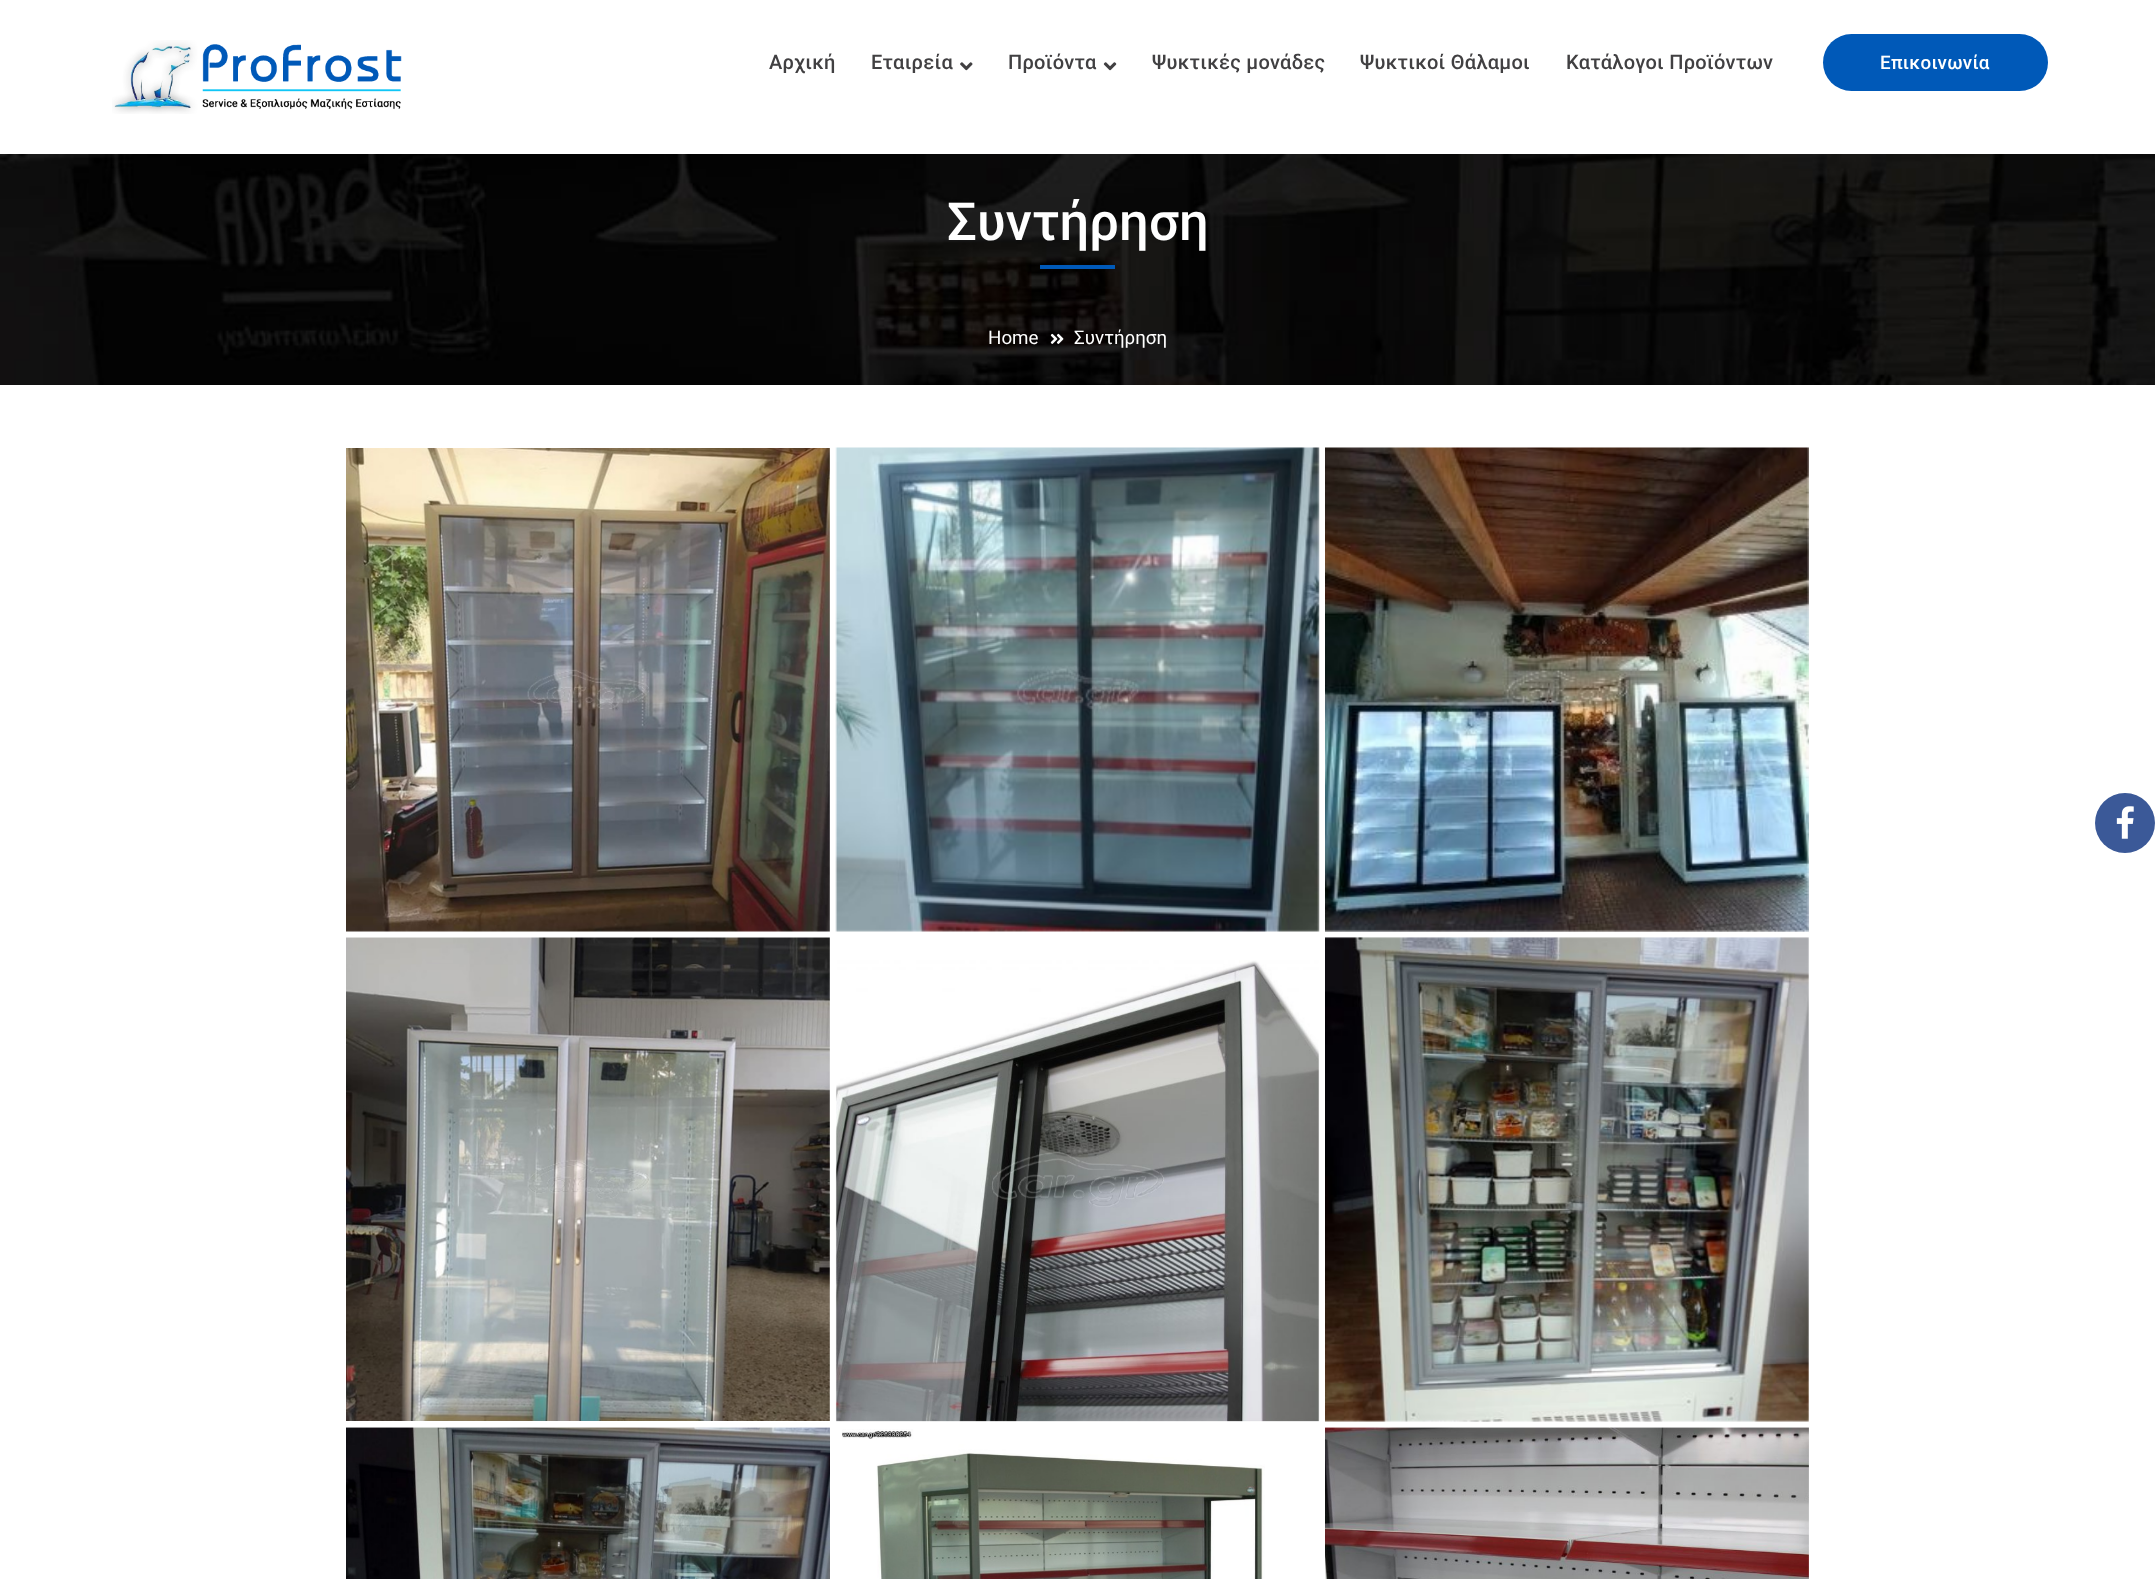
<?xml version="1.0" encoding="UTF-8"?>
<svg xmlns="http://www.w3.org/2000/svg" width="2155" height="1579">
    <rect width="100%" height="100%" fill="#FFFFFF"/>
    <image x="112" y="40" width="290" height="74" href="img_01.png"/>
    <text x="769" y="69" font-family="Roboto" font-size="20" font-weight="500" letter-spacing="0.3" fill="#414042">Αρχική</text>
    <text x="871" y="69" font-family="Roboto" font-size="20" font-weight="500" letter-spacing="0.3" fill="#414042">Εταιρεία</text>
    <image x="960" y="62" width="13" height="9" href="img_02.png"/>
    <text x="1008" y="69" font-family="Roboto" font-size="20" font-weight="500" letter-spacing="0.3" fill="#414042">Προϊόντα</text>
    <image x="1103" y="62" width="14" height="9" href="img_03.png"/>
    <text x="1152" y="69" font-family="Roboto" font-size="20" font-weight="500" letter-spacing="0.3" fill="#414042">Ψυκτικές μονάδες</text>
    <text x="1360" y="69" font-family="Roboto" font-size="20" font-weight="500" letter-spacing="0.3" fill="#414042">Ψυκτικοί Θάλαμοι</text>
    <text x="1566" y="69" font-family="Roboto" font-size="20" font-weight="500" letter-spacing="0.3" fill="#414042">Κατάλογοι Προϊόντων</text>
    <rect x="1823" y="34" width="225" height="57" rx="28.5" fill="#0059B8"/>
    <text x="1880" y="69" font-family="Roboto" font-size="18.75" font-weight="500" letter-spacing="0.3" fill="#FFFFFF">Επικοινωνία</text>
    <image x="0" y="154" width="2155" height="231" href="img_04.png"/>
    <text x="947" y="240" font-family="Roboto" font-size="52.5" font-weight="500" letter-spacing="0.1" fill="#FFFFFF">Συντήρηση</text>
    <rect x="1040" y="265" width="75" height="4" fill="#0059B8"/>
    <text x="988" y="344" font-family="Roboto" font-size="18.75" fill="#FFFFFF">Home</text>
    <image x="1050" y="333" width="14" height="11" href="img_05.png"/>
    <text x="1074" y="344" font-family="Roboto" font-size="18.75" fill="#FFFFFF">Συντήρηση</text>
    <image x="346" y="448" width="484" height="484" href="img_06.png"/>
    <image x="835" y="447" width="485" height="485" href="img_07.png"/>
    <image x="1325" y="447" width="484" height="485" href="img_08.png"/>
    <image x="346" y="937" width="484" height="484" href="img_09.png"/>
    <image x="835" y="960" width="485" height="462" href="img_10.png"/>
    <image x="1325" y="937" width="484" height="485" href="img_11.png"/>
    <image x="346" y="1427" width="484" height="152" href="img_12.png"/>
    <image x="842" y="1429" width="423" height="150" href="img_13.png"/>
    <image x="1325" y="1427" width="484" height="152" href="img_14.png"/>
    <circle cx="2125" cy="823" r="30" fill="#3B5998"/>
    <image x="2116" y="806" width="18" height="33" href="img_15.png"/>
</svg>
